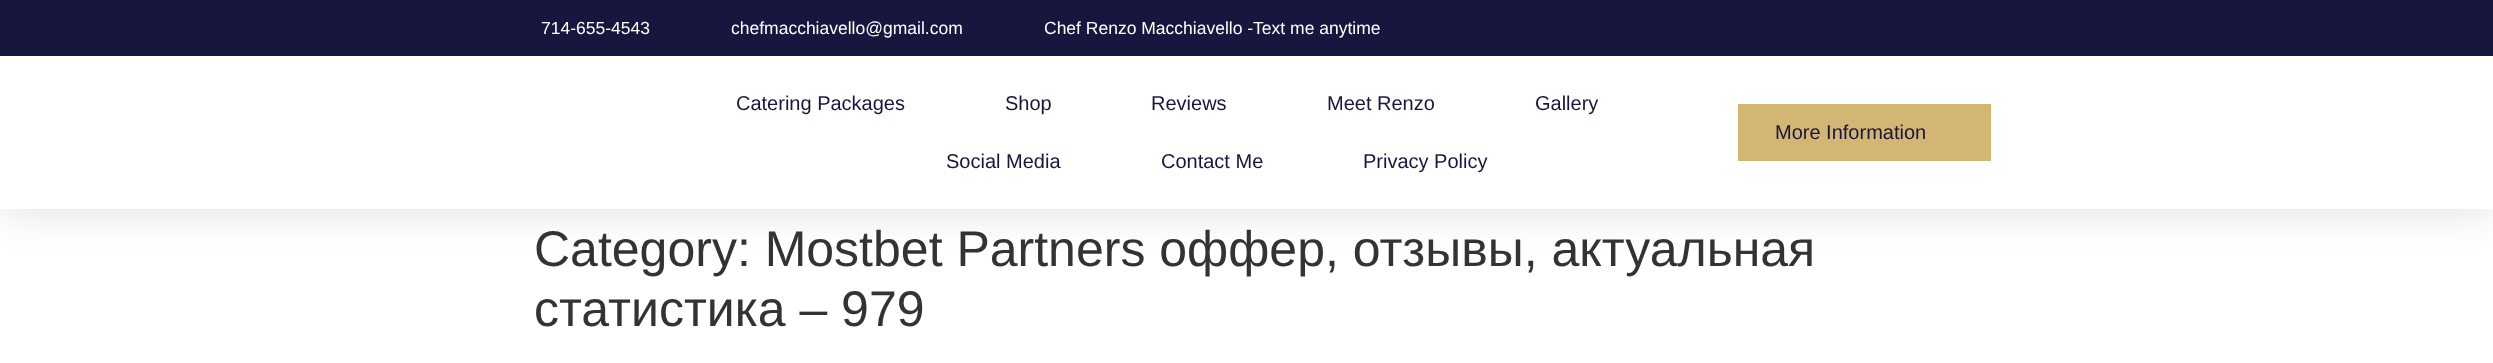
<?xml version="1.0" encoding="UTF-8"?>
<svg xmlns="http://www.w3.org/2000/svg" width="2493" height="363">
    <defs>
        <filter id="blur1" x="-50%" y="-200%" width="200%" height="500%"><feGaussianBlur stdDeviation="19"/></filter>
    </defs>
    <rect width="100%" height="100%" fill="#FFFFFF"/>
    <rect x="0" y="6" width="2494" height="209" fill="#000000" fill-opacity="0.1" filter="url(#blur1)"/>
    <rect x="0" y="0" width="2493" height="56" fill="#16163F"/>
    <text x="541" y="34" font-family="Liberation Sans" font-size="17.5" fill="#FFFFFF">714-655-4543</text>
    <text x="731" y="34" font-family="Liberation Sans" font-size="17.5" fill="#FFFFFF">chefmacchiavello@gmail.com</text>
    <text x="1044" y="34" font-family="Liberation Sans" font-size="17.5" fill="#FFFFFF">Chef Renzo Macchiavello -Text me anytime</text>
    <rect x="0" y="56" width="2493" height="153" fill="#FFFFFF"/>
    <text x="736" y="110" font-family="Liberation Sans" font-size="20" fill="#16163F">Catering Packages</text>
    <text x="1005" y="110" font-family="Liberation Sans" font-size="20" fill="#16163F">Shop</text>
    <text x="1151" y="110" font-family="Liberation Sans" font-size="20" fill="#16163F">Reviews</text>
    <text x="1327" y="110" font-family="Liberation Sans" font-size="20" fill="#16163F">Meet Renzo</text>
    <text x="1535" y="110" font-family="Liberation Sans" font-size="20" fill="#16163F">Gallery</text>
    <text x="946" y="168" font-family="Liberation Sans" font-size="20" fill="#16163F">Social Media</text>
    <text x="1161" y="168" font-family="Liberation Sans" font-size="20" fill="#16163F">Contact Me</text>
    <text x="1363" y="168" font-family="Liberation Sans" font-size="20" fill="#16163F">Privacy Policy</text>
    <rect x="1738" y="104" width="253" height="57" fill="#D3B574"/>
    <text x="1775" y="139" font-family="Liberation Sans" font-size="20" fill="#16163F">More Information</text>
    <text font-family="Liberation Sans" font-size="50" fill="#333333">
        <tspan x="534" y="266">Category: Mostbet Partners оффер, отзывы, актуальная</tspan>
        <tspan x="534" y="326">статистика – 979</tspan>
    </text>
</svg>
